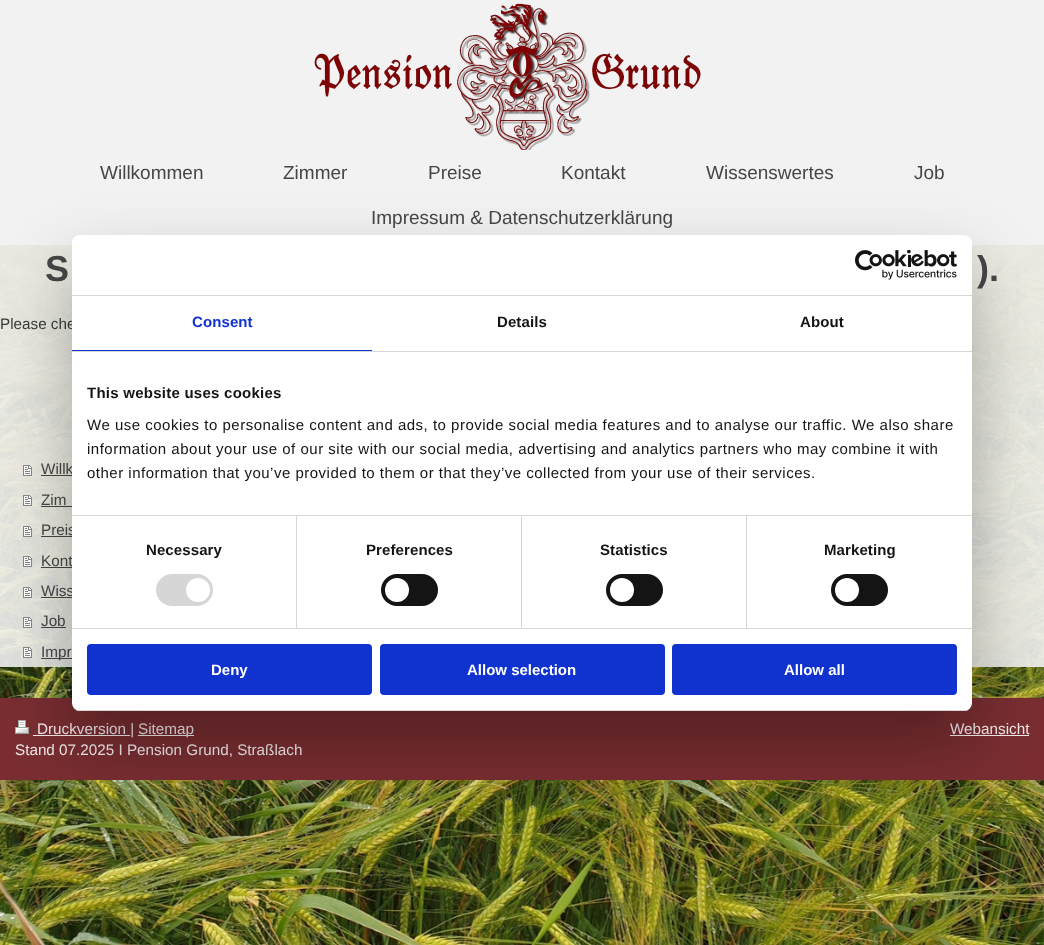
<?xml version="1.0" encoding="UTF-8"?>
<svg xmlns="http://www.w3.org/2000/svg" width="1044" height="945">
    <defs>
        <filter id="blur1" x="-50%" y="-200%" width="200%" height="500%"><feGaussianBlur stdDeviation="34"/></filter>
        <clipPath id="clip1"><rect x="72" y="235" width="900" height="476" rx="8"/></clipPath>
    </defs>
    <rect width="100%" height="100%" fill="#FFFFFF"/>
    <image x="0" y="245" width="1044" height="700" href="img_01.png"/>
    <rect x="0" y="0" width="1044" height="245" fill="#F2F2F2"/>
    <image x="314" y="3" width="387" height="147" href="img_02.png"/>
    <text x="100" y="179" font-family="Liberation Sans" font-size="19" fill="#464646">Willkommen</text>
    <text x="283" y="179" font-family="Liberation Sans" font-size="19" fill="#464646">Zimmer</text>
    <text x="428" y="179" font-family="Liberation Sans" font-size="19" fill="#464646">Preise</text>
    <text x="561" y="179" font-family="Liberation Sans" font-size="19" fill="#464646">Kontakt</text>
    <text x="706" y="179" font-family="Liberation Sans" font-size="19" fill="#464646">Wissenswertes</text>
    <text x="914" y="179" font-family="Liberation Sans" font-size="19" fill="#464646">Job</text>
    <text x="371" y="224" font-family="Liberation Sans" font-size="19" fill="#464646">Impressum &amp; Datenschutzerklärung</text>
    <rect x="0" y="245" width="1044" height="422" fill="#F2F2F2" fill-opacity="0.9"/>
    <text x="45" y="281" font-family="Liberation Sans" font-size="36" font-weight="700" fill="#464646">S</text>
    <text x="977" y="281" font-family="Liberation Sans" font-size="36" font-weight="700" fill="#464646">).</text>
    <text x="0" y="329" font-family="Liberation Sans" font-size="15.25" fill="#3A3A3A">Please che</text>
    <image x="23" y="465" width="9" height="11" href="img_03.png"/>
    <text x="41" y="474" font-family="Liberation Sans" font-size="15.25" fill="#464646">Willk</text>
    <rect x="41" y="475" width="31" height="1" fill="#464646"/>
    <image x="23" y="495" width="9" height="11" href="img_04.png"/>
    <text x="41" y="505" font-family="Liberation Sans" font-size="15.25" fill="#464646">Zim</text>
    <rect x="41" y="506" width="31" height="1" fill="#464646"/>
    <image x="23" y="526" width="9" height="11" href="img_05.png"/>
    <text x="41" y="535" font-family="Liberation Sans" font-size="15.25" fill="#464646">Preis</text>
    <rect x="41" y="536" width="31" height="1" fill="#464646"/>
    <image x="23" y="556" width="9" height="11" href="img_06.png"/>
    <text x="41" y="566" font-family="Liberation Sans" font-size="15.25" fill="#464646">Kont</text>
    <rect x="41" y="567" width="31" height="1" fill="#464646"/>
    <image x="23" y="587" width="9" height="11" href="img_07.png"/>
    <text x="41" y="596" font-family="Liberation Sans" font-size="15.25" fill="#464646">Wiss</text>
    <rect x="41" y="597" width="31" height="1" fill="#464646"/>
    <image x="23" y="617" width="9" height="11" href="img_08.png"/>
    <text x="41" y="626" font-family="Liberation Sans" font-size="15.25" fill="#464646">Job</text>
    <rect x="41" y="627" width="25" height="1" fill="#464646"/>
    <image x="23" y="647" width="9" height="11" href="img_09.png"/>
    <rect x="41" y="658" width="31" height="1" fill="#464646"/>
    <text x="41" y="657" font-family="Liberation Sans" font-size="15.25" fill="#464646">Impr</text>
    <rect x="0" y="698" width="1044" height="82" fill="#792D31"/>
    <image x="15" y="720" width="14" height="14" href="img_10.png"/>
    <rect x="33" y="735" width="97" height="1" fill="#F2EAEA"/>
    <text x="37" y="734" font-family="Liberation Sans" font-size="15.25" fill="#F2EAEA">Druckversion |</text>
    <rect x="138" y="735" width="56" height="1" fill="#F2EAEA"/>
    <text x="138" y="734" font-family="Liberation Sans" font-size="15.25" fill="#F2EAEA">Sitemap</text>
    <text x="15" y="755" font-family="Liberation Sans" font-size="15.25" fill="#F2EAEA">Stand 07.2025 I Pension Grund, Straßlach</text>
    <text x="950" y="734" font-family="Liberation Sans" font-size="15.25" fill="#F2EAEA">Webansicht</text>
    <rect x="950" y="735" width="79" height="1" fill="#F2EAEA"/>
    <rect x="72" y="267" width="900" height="476" rx="8" fill="#000000" fill-opacity="0.3" filter="url(#blur1)"/>
    <rect x="72" y="235" width="900" height="476" rx="8" fill="#FFFFFF"/>
    <rect x="72" y="295" width="900" height="1" fill="#D6D6D6"/>
    <image x="855" y="250" width="102" height="30" href="img_11.png"/>
    <rect x="72" y="351" width="900" height="1" fill="#D6D6D6"/>
    <rect x="72" y="350" width="300" height="1" fill="#1032CF"/>
    <text x="192" y="327" font-family="Liberation Sans" font-size="15" font-weight="700" letter-spacing="0.1" fill="#1032CF">Consent</text>
    <text x="497" y="327" font-family="Liberation Sans" font-size="15" font-weight="700" letter-spacing="0.1" fill="#141414">Details</text>
    <text x="800" y="327" font-family="Liberation Sans" font-size="15" font-weight="700" letter-spacing="0.1" fill="#141414">About</text>
    <rect x="72" y="515" width="900" height="1" fill="#D6D6D6"/>
    <text x="87" y="398" font-family="Liberation Sans" font-size="15" font-weight="700" letter-spacing="0.25" fill="#141414">This website uses cookies</text>
    <text font-family="Liberation Sans" font-size="15" letter-spacing="0.5" fill="#141414">
        <tspan x="87" y="430">We use cookies to personalise content and ads, to provide social media features and to analyse our traffic. We also share</tspan>
        <tspan x="87" y="454">information about your use of our site with our social media, advertising and analytics partners who may combine it with</tspan>
        <tspan x="87" y="478">other information that you’ve provided to them or that they’ve collected from your use of their services.</tspan>
    </text>
    <rect x="72" y="628" width="900" height="1" fill="#D6D6D6"/>
    <rect x="296" y="516" width="1" height="112" fill="#D6D6D6"/>
    <text x="146" y="555" font-family="Liberation Sans" font-size="15" font-weight="700" letter-spacing="0.1" fill="#141414">Necessary</text>
    <rect x="156" y="574" width="57" height="32" rx="16" fill="#D6D6D6"/>
    <circle cx="198" cy="590" r="12" fill="#FFFFFF"/>
    <rect x="521" y="516" width="1" height="112" fill="#D6D6D6"/>
    <text x="366" y="555" font-family="Liberation Sans" font-size="15" font-weight="700" letter-spacing="0.1" fill="#141414">Preferences</text>
    <rect x="381" y="574" width="57" height="32" rx="16" fill="#141414"/>
    <circle cx="397" cy="590" r="12" fill="#FFFFFF"/>
    <rect x="746" y="516" width="1" height="112" fill="#D6D6D6"/>
    <text x="600" y="555" font-family="Liberation Sans" font-size="15" font-weight="700" letter-spacing="0.1" fill="#141414">Statistics</text>
    <rect x="606" y="574" width="57" height="32" rx="16" fill="#141414"/>
    <circle cx="622" cy="590" r="12" fill="#FFFFFF"/>
    <text x="824" y="555" font-family="Liberation Sans" font-size="15" font-weight="700" letter-spacing="0.1" fill="#141414">Marketing</text>
    <rect x="831" y="574" width="57" height="32" rx="16" fill="#141414"/>
    <circle cx="847" cy="590" r="12" fill="#FFFFFF"/>
    <g clip-path="url(#clip1)">
        <rect x="72" y="710" width="900" height="1" fill="#D6D6D6"/>
    </g>
    <rect x="88" y="645" width="283" height="49" rx="3" fill="#1032CF" stroke="#1032CF" stroke-width="2"/>
    <text x="211" y="675" font-family="Liberation Sans" font-size="15" font-weight="700" fill="#FFFFFF">Deny</text>
    <rect x="381" y="645" width="283" height="49" rx="3" fill="#1032CF" stroke="#1032CF" stroke-width="2"/>
    <text x="467" y="675" font-family="Liberation Sans" font-size="15" font-weight="700" fill="#FFFFFF">Allow selection</text>
    <rect x="673" y="645" width="283" height="49" rx="3" fill="#1032CF" stroke="#1032CF" stroke-width="2"/>
    <text x="784" y="675" font-family="Liberation Sans" font-size="15" font-weight="700" fill="#FFFFFF">Allow all</text>
</svg>
